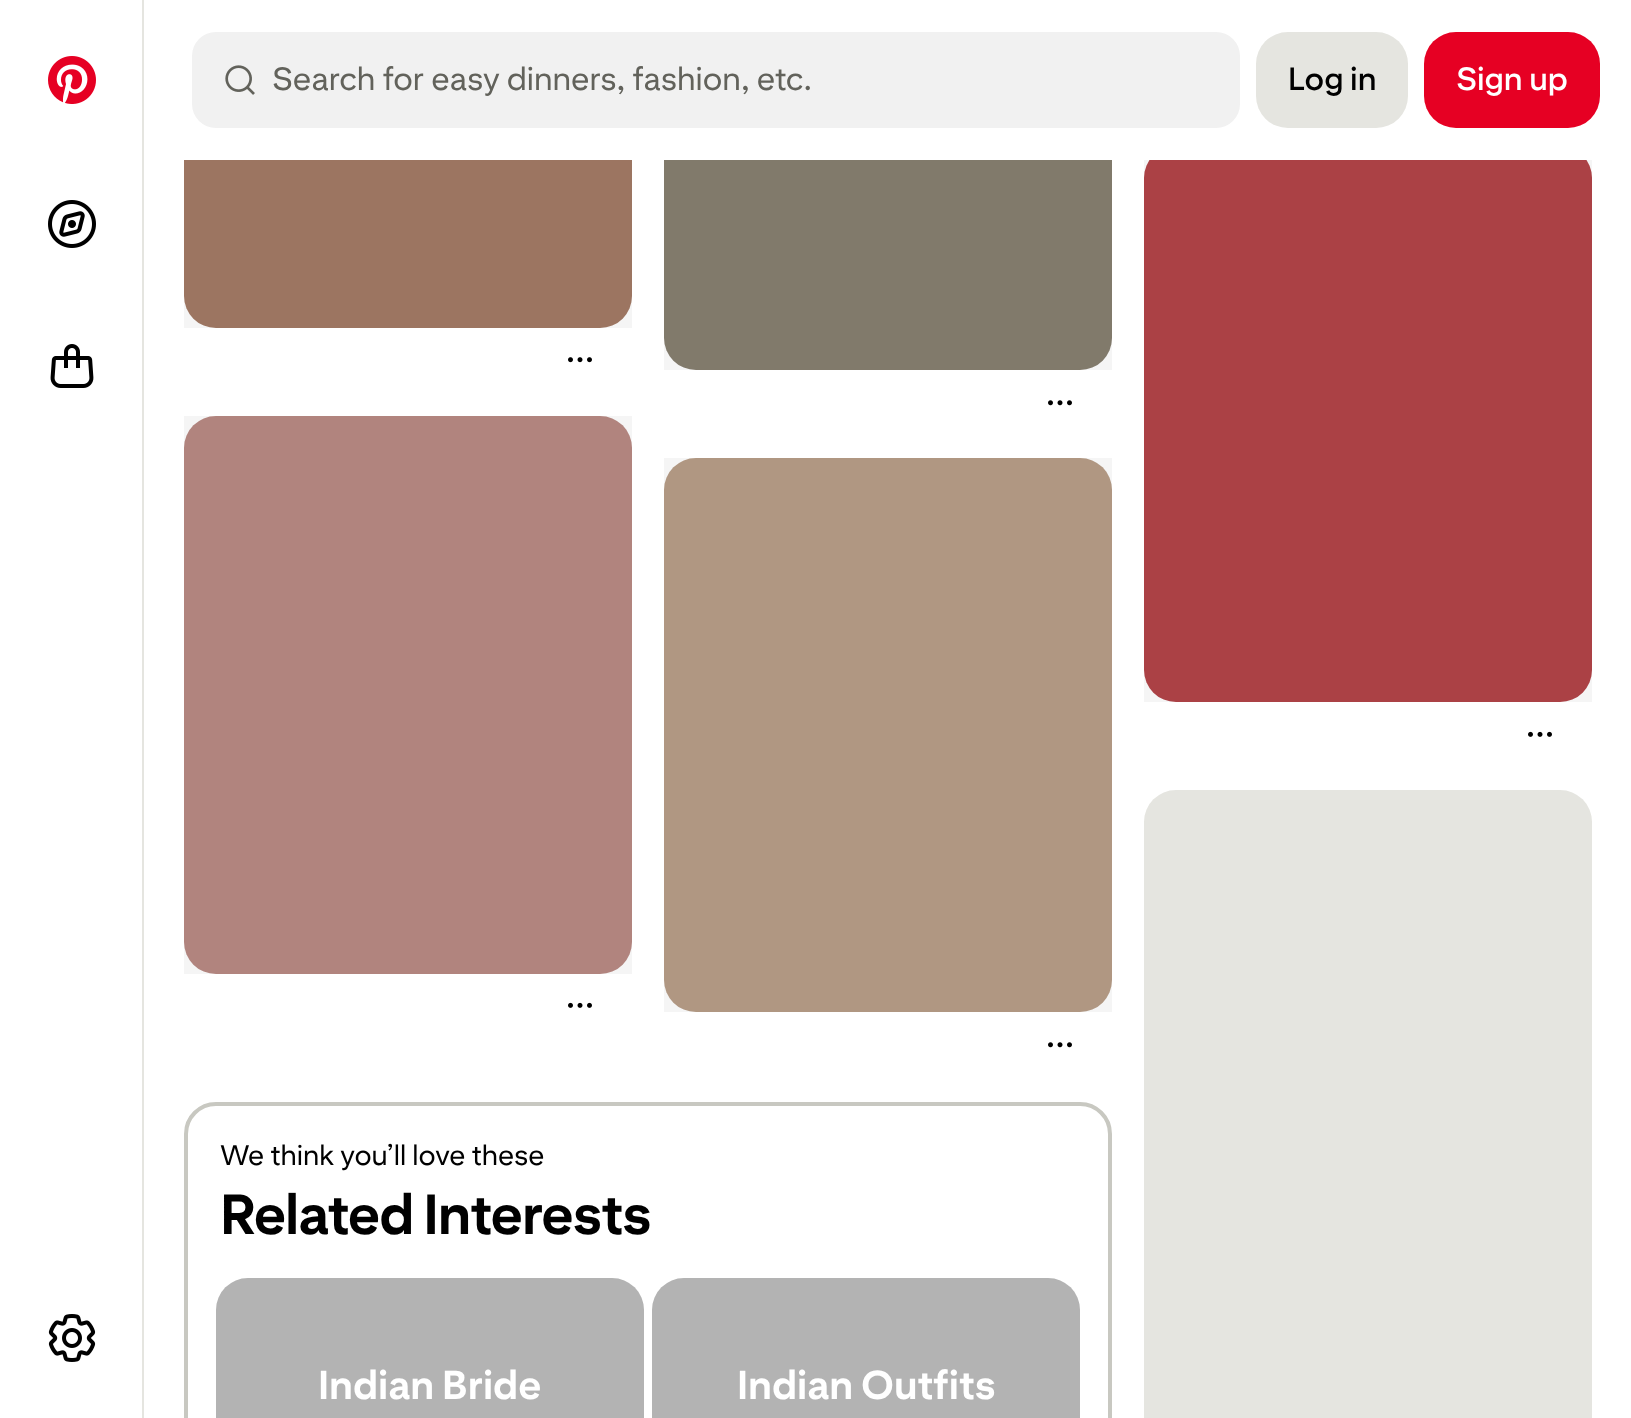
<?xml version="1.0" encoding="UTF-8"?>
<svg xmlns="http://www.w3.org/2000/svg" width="1631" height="1418">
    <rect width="100%" height="100%" fill="#FFFFFF"/>
    <rect x="142" y="0" width="2" height="1418" fill="#E5E5E0"/>
    <image x="48" y="56" width="48" height="48" href="img_01.png"/>
    <image x="48" y="200" width="48" height="48" href="img_02.png"/>
    <image x="50" y="344" width="44" height="44" href="img_03.png"/>
    <image x="48" y="1314" width="48" height="48" href="img_04.png"/>
    <rect x="184" y="-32" width="448" height="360" rx="32" fill="#A37A65"/>
    <rect x="664" y="-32" width="448" height="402" rx="32" fill="#877F70"/>
    <rect x="1144" y="146" width="448" height="556" rx="32" fill="#B24448"/>
    <rect x="184" y="0" width="1403" height="160" fill="#FFFFFF"/>
    <rect x="192" y="32" width="1048" height="96" rx="24" fill="#F1F1F1"/>
    <image x="225" y="65" width="30" height="30" href="img_05.png"/>
    <text x="272" y="90" font-family="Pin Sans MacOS" font-size="32" fill="#62625B">Search for easy dinners, fashion, etc.</text>
    <rect x="1256" y="32" width="152" height="96" rx="32" fill="#E5E5E0"/>
    <text x="1288" y="90" font-family="Pin Sans MacOS" font-size="32" font-weight="500" fill="#000000">Log in</text>
    <rect x="1424" y="32" width="176" height="96" rx="32" fill="#E60023"/>
    <text x="1456" y="90" font-family="Pin Sans MacOS" font-size="32" font-weight="500" fill="#FFFFFF">Sign up</text>
    <rect x="184" y="160" width="448" height="168" fill="#000000" fill-opacity="0.04"/>
    <image x="568" y="357" width="24" height="6" href="img_06.png"/>
    <rect x="664" y="160" width="448" height="210" fill="#000000" fill-opacity="0.04"/>
    <image x="1048" y="400" width="24" height="6" href="img_07.png"/>
    <rect x="1144" y="160" width="448" height="542" fill="#000000" fill-opacity="0.04"/>
    <image x="1528" y="731" width="24" height="6" href="img_08.png"/>
    <rect x="184" y="416" width="448" height="558" rx="32" fill="#B98A84"/>
    <rect x="184" y="416" width="448" height="558" fill="#000000" fill-opacity="0.04"/>
    <image x="568" y="1002" width="24" height="6" href="img_08.png"/>
    <rect x="664" y="458" width="448" height="554" rx="32" fill="#B89E88"/>
    <rect x="664" y="458" width="448" height="554" fill="#000000" fill-opacity="0.04"/>
    <image x="1048" y="1042" width="24" height="6" href="img_07.png"/>
    <rect x="1144" y="790" width="448" height="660" rx="32" fill="#E5E5E0"/>
    <rect x="186" y="1104" width="924" height="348" rx="30" fill="none" stroke="#C8C8C1" stroke-width="4"/>
    <text x="220" y="1165" font-family="Pin Sans MacOS" font-size="28" fill="#000000">We think you’ll love these</text>
    <text x="220" y="1234" font-family="Pin Sans MacOS" font-size="56" font-weight="700" letter-spacing="-1" fill="#000000">Related Interests</text>
    <rect x="216" y="1278" width="428" height="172" rx="32" fill="#B3B3B3"/>
    <text x="318" y="1399" font-family="Pin Sans MacOS" font-size="40" font-weight="700" fill="#FFFFFF">Indian Bride</text>
    <rect x="652" y="1278" width="428" height="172" rx="32" fill="#B3B3B3"/>
    <text x="737" y="1399" font-family="Pin Sans MacOS" font-size="40" font-weight="700" fill="#FFFFFF">Indian Outfits</text>
</svg>
